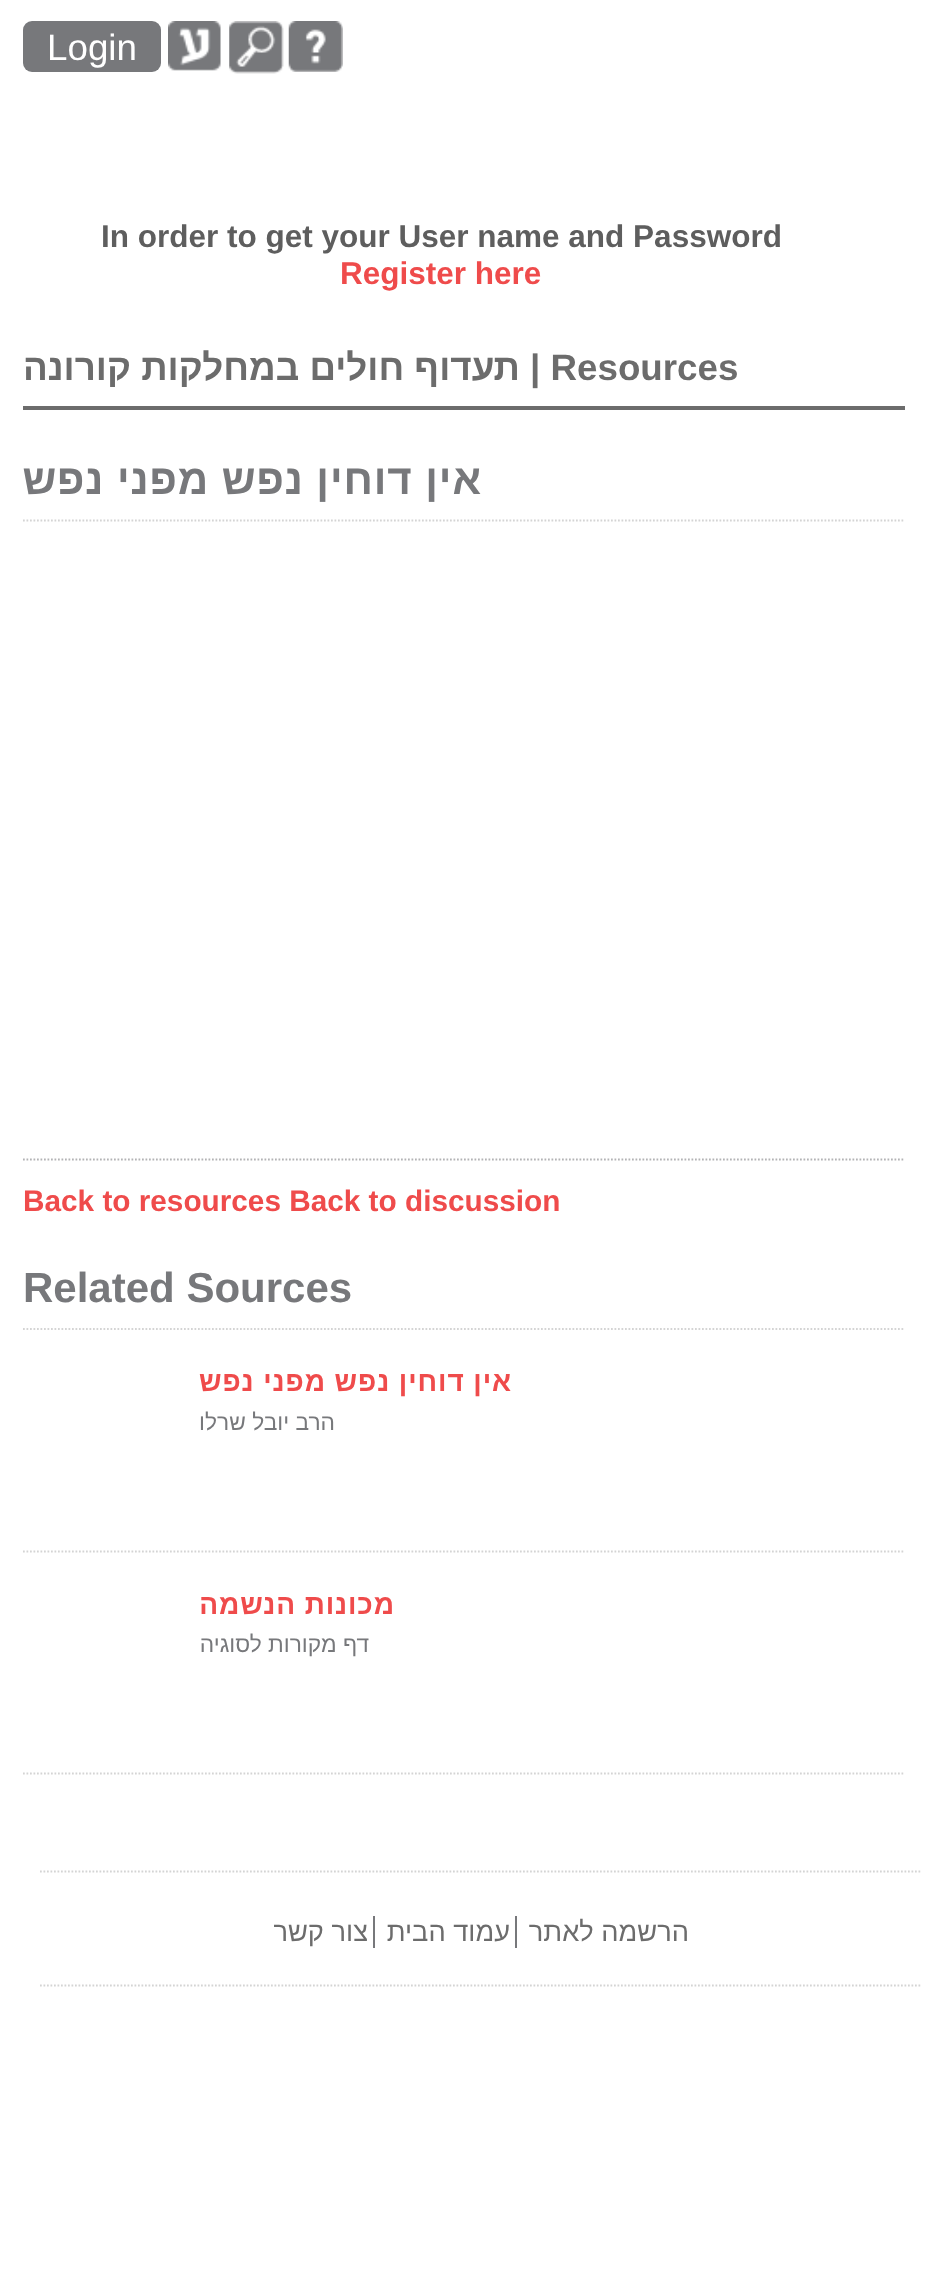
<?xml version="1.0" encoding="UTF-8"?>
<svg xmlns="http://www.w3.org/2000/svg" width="927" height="2290">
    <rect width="100%" height="100%" fill="#FFFFFF"/>
    <image x="288" y="21" width="55" height="51" href="img_01.png"/>
    <image x="229" y="21" width="55" height="53" href="img_02.png"/>
    <image x="168" y="21" width="53" height="50" href="img_03.png"/>
    <rect x="23" y="21" width="138" height="51" rx="9" fill="#77787B"/>
    <text x="47" y="60" font-family="Liberation Sans" font-size="36.75" fill="#FFFFFF">Login</text>
    <text x="101" y="247" font-family="Liberation Sans" font-size="31.5" font-weight="700" fill="#5E5E5E">In order to get your User name and Password</text>
    <text x="340" y="284" font-family="Liberation Sans" font-size="31.5" font-weight="700" fill="#EF4B4B">Register here</text>
    <rect x="23" y="406" width="882" height="4" fill="#6C6C6C"/>
    <text x="530" y="380" font-family="Liberation Sans" font-size="36.75" font-weight="700" fill="#6C6C6C">| Resources</text>
    <text x="520" y="380" font-family="Liberation Sans" font-size="36.75" font-weight="700" direction="rtl" fill="#6C6C6C">תעדוף חולים במחלקות קורונה</text>
    <path d="M 23 520.5 H 905" fill="none" stroke="#D4D4D4" stroke-width="1.8" stroke-dasharray="1.75 1.75"/>
    <text x="482" y="494" font-family="Liberation Sans" font-size="42" font-weight="700" letter-spacing="0.9" direction="rtl" fill="#77787B">אין דוחין נפש מפני נפש</text>
    <path d="M 23 1159.5 H 905" fill="none" stroke="#B3B3B5" stroke-width="1.8" stroke-dasharray="1.75 1.75"/>
    <text x="23" y="1211" font-family="Liberation Sans" font-size="29.75" font-weight="700" fill="#EF4B4B">Back to resources Back to discussion</text>
    <path d="M 23 1329 H 905" fill="none" stroke="#D4D4D4" stroke-width="1.8" stroke-dasharray="1.75 1.75"/>
    <text x="23" y="1302" font-family="Liberation Sans" font-size="42" font-weight="700" fill="#77787B">Related Sources</text>
    <path d="M 23 1551.5 H 905" fill="none" stroke="#D4D4D4" stroke-width="1.8" stroke-dasharray="1.75 1.75"/>
    <text x="512" y="1391" font-family="Liberation Sans" font-size="28" font-weight="700" letter-spacing="0.9" direction="rtl" fill="#EF4B4B">אין דוחין נפש מפני נפש</text>
    <text x="335" y="1430" font-family="Liberation Sans" font-size="22.75" direction="rtl" fill="#77787B">הרב יובל שרלו</text>
    <path d="M 23 1773.5 H 905" fill="none" stroke="#D4D4D4" stroke-width="1.8" stroke-dasharray="1.75 1.75"/>
    <text x="395" y="1614" font-family="Liberation Sans" font-size="28" font-weight="700" letter-spacing="0.9" direction="rtl" fill="#EF4B4B">מכונות הנשמה</text>
    <text x="369" y="1652" font-family="Liberation Sans" font-size="22.75" direction="rtl" fill="#77787B">דף מקורות לסוגיה</text>
    <path d="M 40 1871.5 H 922" fill="none" stroke="#D4D4D4" stroke-width="1.8" stroke-dasharray="1.75 1.75"/>
    <path d="M 40 1985.5 H 922" fill="none" stroke="#D4D4D4" stroke-width="1.8" stroke-dasharray="1.75 1.75"/>
    <text x="689" y="1941" font-family="Liberation Sans" font-size="27.25" direction="rtl" fill="#6C6C6C">הרשמה לאתר</text>
    <rect x="515" y="1916" width="2" height="32" fill="#77787B"/>
    <text x="510" y="1941" font-family="Liberation Sans" font-size="27.25" direction="rtl" fill="#6C6C6C">עמוד הבית</text>
    <rect x="373" y="1916" width="2" height="32" fill="#77787B"/>
    <text x="368" y="1941" font-family="Liberation Sans" font-size="27.25" direction="rtl" fill="#6C6C6C">צור קשר</text>
</svg>
